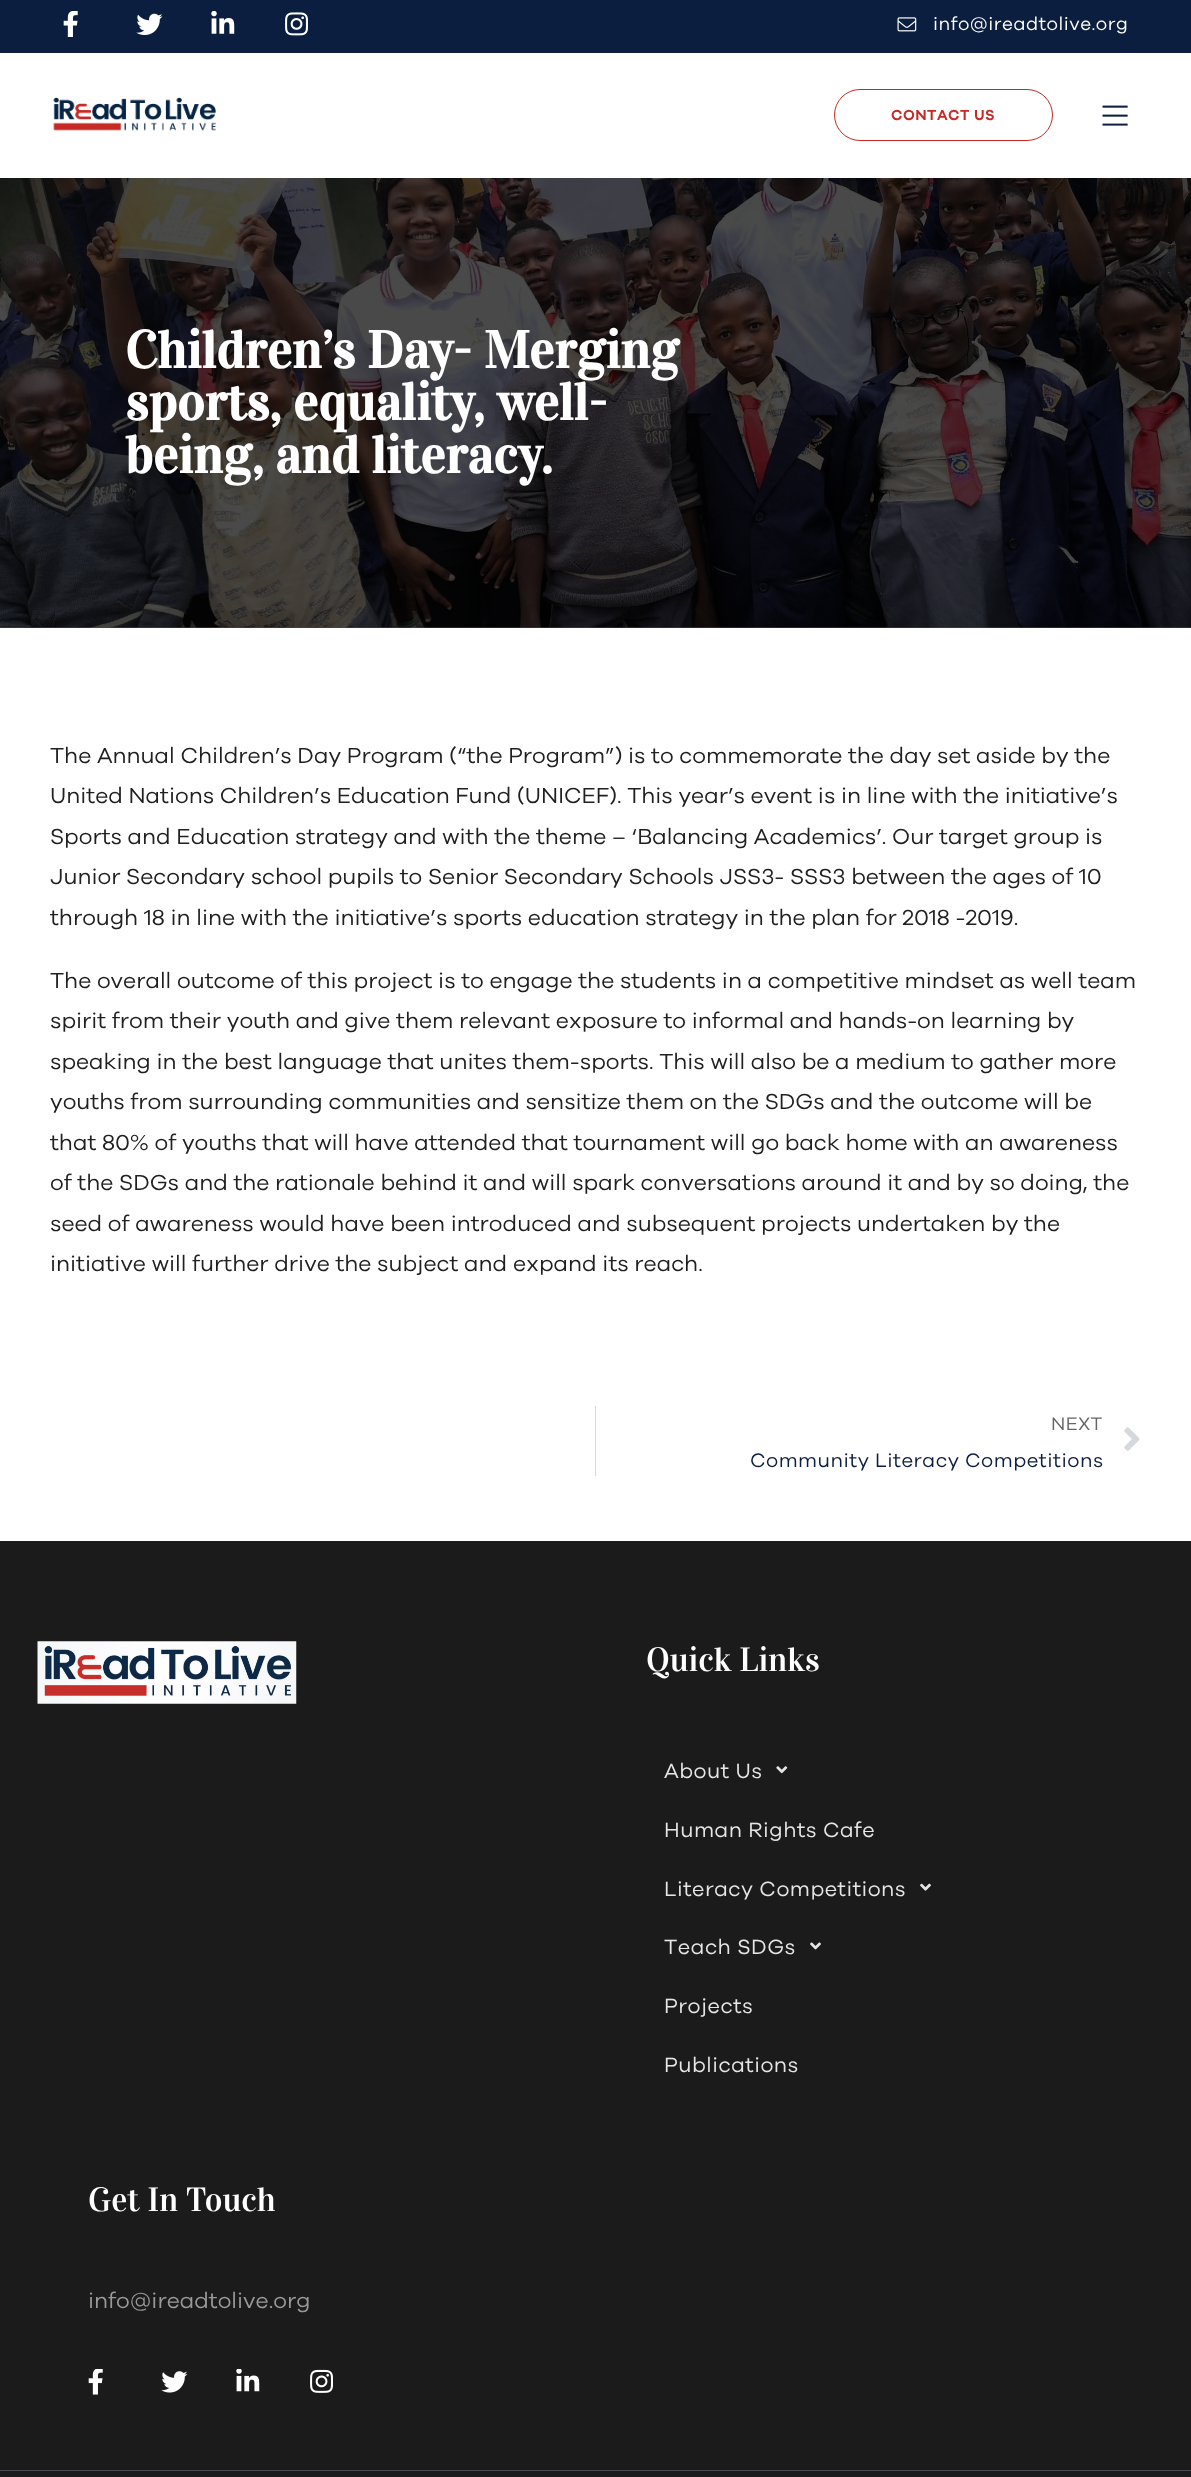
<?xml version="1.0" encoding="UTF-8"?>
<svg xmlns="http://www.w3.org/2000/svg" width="1191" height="2477">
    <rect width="100%" height="100%" fill="#FFFFFF"/>
    <rect x="0" y="627" width="1191" height="1" fill="#4A4A4A"/>
    <rect x="0" y="0" width="1191" height="53" fill="#0C1E3F"/>
    <image x="63" y="11" width="15" height="26" href="img_01.png"/>
    <image x="136" y="13" width="27" height="22" href="img_02.png"/>
    <image x="211" y="11" width="24" height="23" href="img_03.png"/>
    <image x="285" y="12" width="23" height="24" href="img_04.png"/>
    <image x="897" y="17" width="20" height="15" href="img_05.png"/>
    <text x="933" y="30" font-family="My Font" font-size="18.75" font-weight="500" letter-spacing="0.5" fill="#FFFFFF">info@ireadtolive.org</text>
    <image x="53" y="97" width="163" height="34" href="img_06.png"/>
    <rect x="834.5" y="89.5" width="218" height="51" rx="25.5" fill="none" stroke="#C62A24"/>
    <text x="891" y="120" font-family="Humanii" font-size="15" font-weight="500" letter-spacing="0.5" fill="#C62A24">CONTACT US</text>
    <image x="1102" y="105" width="26" height="21" href="img_07.png"/>
    <image x="0" y="178" width="1191" height="450" href="img_08.png"/>
    <text font-family="Vidaloka" font-size="52.5" font-weight="700" fill="#FFFFFF">
        <tspan x="125" y="368">Children’s Day- Merging</tspan>
        <tspan x="125" y="420">sports, equality, well-</tspan>
        <tspan x="125" y="473">being, and literacy.</tspan>
    </text>
    <text font-family="My Font" font-size="22.5" font-weight="500" fill="#202020">
        <tspan x="50" y="763">The Annual Children’s Day Program (“the Program”) is to commemorate the day set aside by the</tspan>
        <tspan x="50" y="803">United Nations Children’s Education Fund (UNICEF). This year’s event is in line with the initiative’s</tspan>
        <tspan x="50" y="844">Sports and Education strategy and with the theme – ‘Balancing Academics’. Our target group is</tspan>
        <tspan x="50" y="884">Junior Secondary school pupils to Senior Secondary Schools JSS3- SSS3 between the ages of 10</tspan>
        <tspan x="50" y="925">through 18 in line with the initiative’s sports education strategy in the plan for 2018 -2019.</tspan>
    </text>
    <text font-family="My Font" font-size="22.5" font-weight="500" fill="#202020">
        <tspan x="50" y="988">The overall outcome of this project is to engage the students in a competitive mindset as well team</tspan>
        <tspan x="50" y="1028">spirit from their youth and give them relevant exposure to informal and hands-on learning by</tspan>
        <tspan x="50" y="1069">speaking in the best language that unites them-sports. This will also be a medium to gather more</tspan>
        <tspan x="50" y="1109">youths from surrounding communities and sensitize them on the SDGs and the outcome will be</tspan>
        <tspan x="50" y="1150">that 80% of youths that will have attended that tournament will go back home with an awareness</tspan>
        <tspan x="50" y="1190">of the SDGs and the rationale behind it and will spark conversations around it and by so doing, the</tspan>
        <tspan x="50" y="1231">seed of awareness would have been introduced and subsequent projects undertaken by the</tspan>
        <tspan x="50" y="1271">initiative will further drive the subject and expand its reach.</tspan>
    </text>
    <rect x="595" y="1406" width="1" height="70" fill="#D5D8DC"/>
    <text x="1051" y="1430" font-family="My Font" font-size="18.75" font-weight="500" letter-spacing="0.5" fill="#666666">NEXT</text>
    <text x="750" y="1467" font-family="My Font" font-size="20" font-weight="500" letter-spacing="0.5" fill="#0C1E3F">Community Literacy Competitions</text>
    <image x="1124" y="1427" width="16" height="24" href="img_09.png"/>
    <rect x="0" y="1541" width="1191" height="929" fill="#1B1B1B"/>
    <rect x="0" y="2470" width="1191" height="1" fill="#4B4B55"/>
    <image x="37" y="1641" width="260" height="63" href="img_10.png"/>
    <text x="646" y="1671" font-family="Vidaloka" font-size="33.75" fill="#FFFFFF">Quick Links</text>
    <text x="664" y="1778" font-family="My Font" font-size="21.25" font-weight="500" letter-spacing="0.5" fill="#E6E6E6">About Us</text>
    <image x="776" y="1766" width="12" height="8" href="img_11.png"/>
    <text x="664" y="1837" font-family="My Font" font-size="21.25" font-weight="500" letter-spacing="0.5" fill="#E6E6E6">Human Rights Cafe</text>
    <text x="664" y="1896" font-family="My Font" font-size="21.25" font-weight="500" letter-spacing="0.5" fill="#E6E6E6">Literacy Competitions</text>
    <image x="920" y="1883" width="11" height="8" href="img_12.png"/>
    <text x="664" y="1954" font-family="My Font" font-size="21.25" font-weight="500" letter-spacing="0.5" fill="#E6E6E6">Teach SDGs</text>
    <image x="810" y="1942" width="11" height="8" href="img_13.png"/>
    <text x="664" y="2013" font-family="My Font" font-size="21.25" font-weight="500" letter-spacing="0.5" fill="#E6E6E6">Projects</text>
    <text x="664" y="2072" font-family="My Font" font-size="21.25" font-weight="500" letter-spacing="0.5" fill="#E6E6E6">Publications</text>
    <text x="88" y="2211" font-family="Vidaloka" font-size="33.75" fill="#FFFFFF">Get In Touch</text>
    <text x="88" y="2308" font-family="My Font" font-size="22.5" font-weight="500" fill="#999999">info@ireadtolive.org</text>
    <image x="88" y="2369" width="15" height="26" href="img_14.png"/>
    <image x="161" y="2371" width="27" height="22" href="img_15.png"/>
    <image x="236" y="2369" width="24" height="23" href="img_16.png"/>
    <image x="310" y="2369" width="23" height="24" href="img_17.png"/>
    <rect x="0" y="2471" width="1191" height="6" fill="#1B1B1B"/>
</svg>
